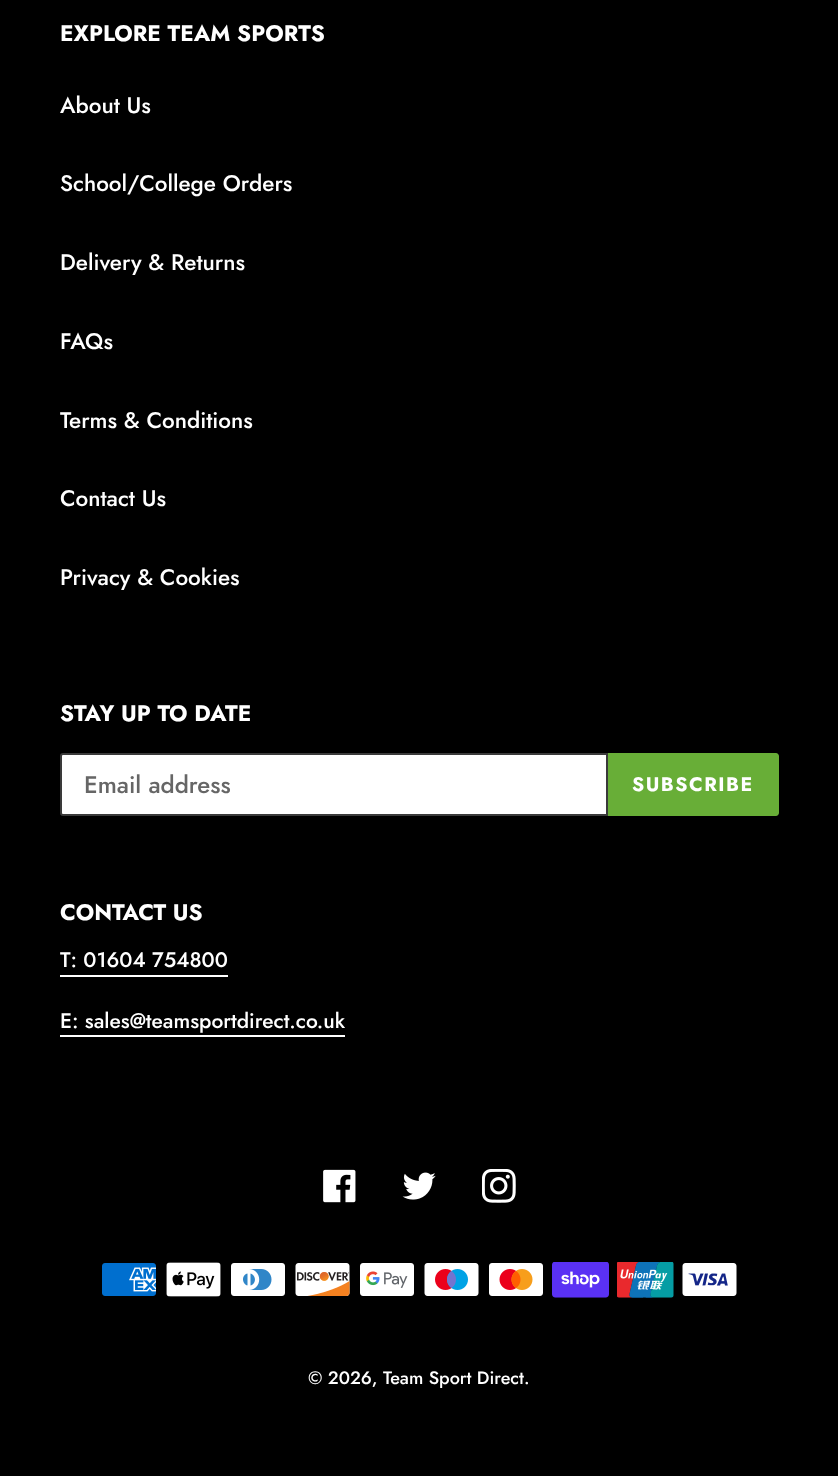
<?xml version="1.0" encoding="UTF-8"?>
<svg xmlns="http://www.w3.org/2000/svg" width="838" height="1476">
    <rect width="100%" height="100%" fill="#000000"/>
    <text x="60" y="41" font-family="Jost" font-size="22.5" font-weight="700" fill="#FFFFFF">EXPLORE TEAM SPORTS</text>
    <text x="60" y="113" font-family="Jost" font-size="22.5" font-weight="500" fill="#FFFFFF">About Us</text>
    <text x="60" y="191" font-family="Jost" font-size="22.5" font-weight="500" fill="#FFFFFF">School/College Orders</text>
    <text x="60" y="270" font-family="Jost" font-size="22.5" font-weight="500" fill="#FFFFFF">Delivery &amp; Returns</text>
    <text x="60" y="349" font-family="Jost" font-size="22.5" font-weight="500" fill="#FFFFFF">FAQs</text>
    <text x="60" y="428" font-family="Jost" font-size="22.5" font-weight="500" fill="#FFFFFF">Terms &amp; Conditions</text>
    <text x="60" y="506" font-family="Jost" font-size="22.5" font-weight="500" fill="#FFFFFF">Contact Us</text>
    <text x="60" y="585" font-family="Jost" font-size="22.5" font-weight="500" fill="#FFFFFF">Privacy &amp; Cookies</text>
    <text x="60" y="721" font-family="Jost" font-size="22.5" font-weight="700" fill="#FFFFFF">STAY UP TO DATE</text>
    <path d="M 63 754 H 607 V 815 H 63 C 62 815 61 814 61 813 V 756 C 61 755 62 754 63 754 Z" fill="#FFFFFF" stroke="#3A3A3A" stroke-width="2"/>
    <text x="84" y="793" font-family="Jost" font-size="24" font-weight="500" fill="#666666">Email address</text>
    <path d="M 608 753 H 776 C 777.5 753 779 754.5 779 756 V 813 C 779 814.5 777.5 816 776 816 H 608 Z" fill="#68AE37"/>
    <text x="632" y="791" font-family="Jost" font-size="19.5" font-weight="700" letter-spacing="1.5" fill="#FFFFFF">SUBSCRIBE</text>
    <text x="60" y="920" font-family="Jost" font-size="22.5" font-weight="700" fill="#FFFFFF">CONTACT US</text>
    <text x="60" y="967" font-family="Jost" font-size="21" font-weight="500" fill="#FFFFFF">T: 01604 754800</text>
    <rect x="60" y="975" width="168" height="2" fill="#FFFFFF"/>
    <text x="60" y="1028" font-family="Jost" font-size="21" font-weight="500" fill="#FFFFFF">E: sales@teamsportdirect.co.uk</text>
    <rect x="60" y="1035" width="285" height="2" fill="#FFFFFF"/>
    <image x="323" y="1169" width="33" height="34" href="img_01.png"/>
    <image x="402" y="1172" width="34" height="28" href="img_02.png"/>
    <image x="482" y="1169" width="34" height="34" href="img_03.png"/>
    <image x="102" y="1263" width="54" height="33" href="img_04.png"/>
    <image x="166" y="1262" width="55" height="35" href="img_05.png"/>
    <image x="231" y="1263" width="54" height="33" href="img_06.png"/>
    <image x="295" y="1263" width="55" height="33" href="img_07.png"/>
    <image x="360" y="1263" width="54" height="33" href="img_08.png"/>
    <image x="424" y="1263" width="55" height="33" href="img_09.png"/>
    <image x="489" y="1263" width="54" height="33" href="img_10.png"/>
    <image x="552" y="1262" width="57" height="36" href="img_11.png"/>
    <image x="617" y="1262" width="57" height="36" href="img_12.png"/>
    <image x="682" y="1263" width="55" height="33" href="img_13.png"/>
    <text x="308" y="1384" font-family="Jost" font-size="18" font-weight="500" fill="#FFFFFF">© 2026, Team Sport Direct.</text>
</svg>
